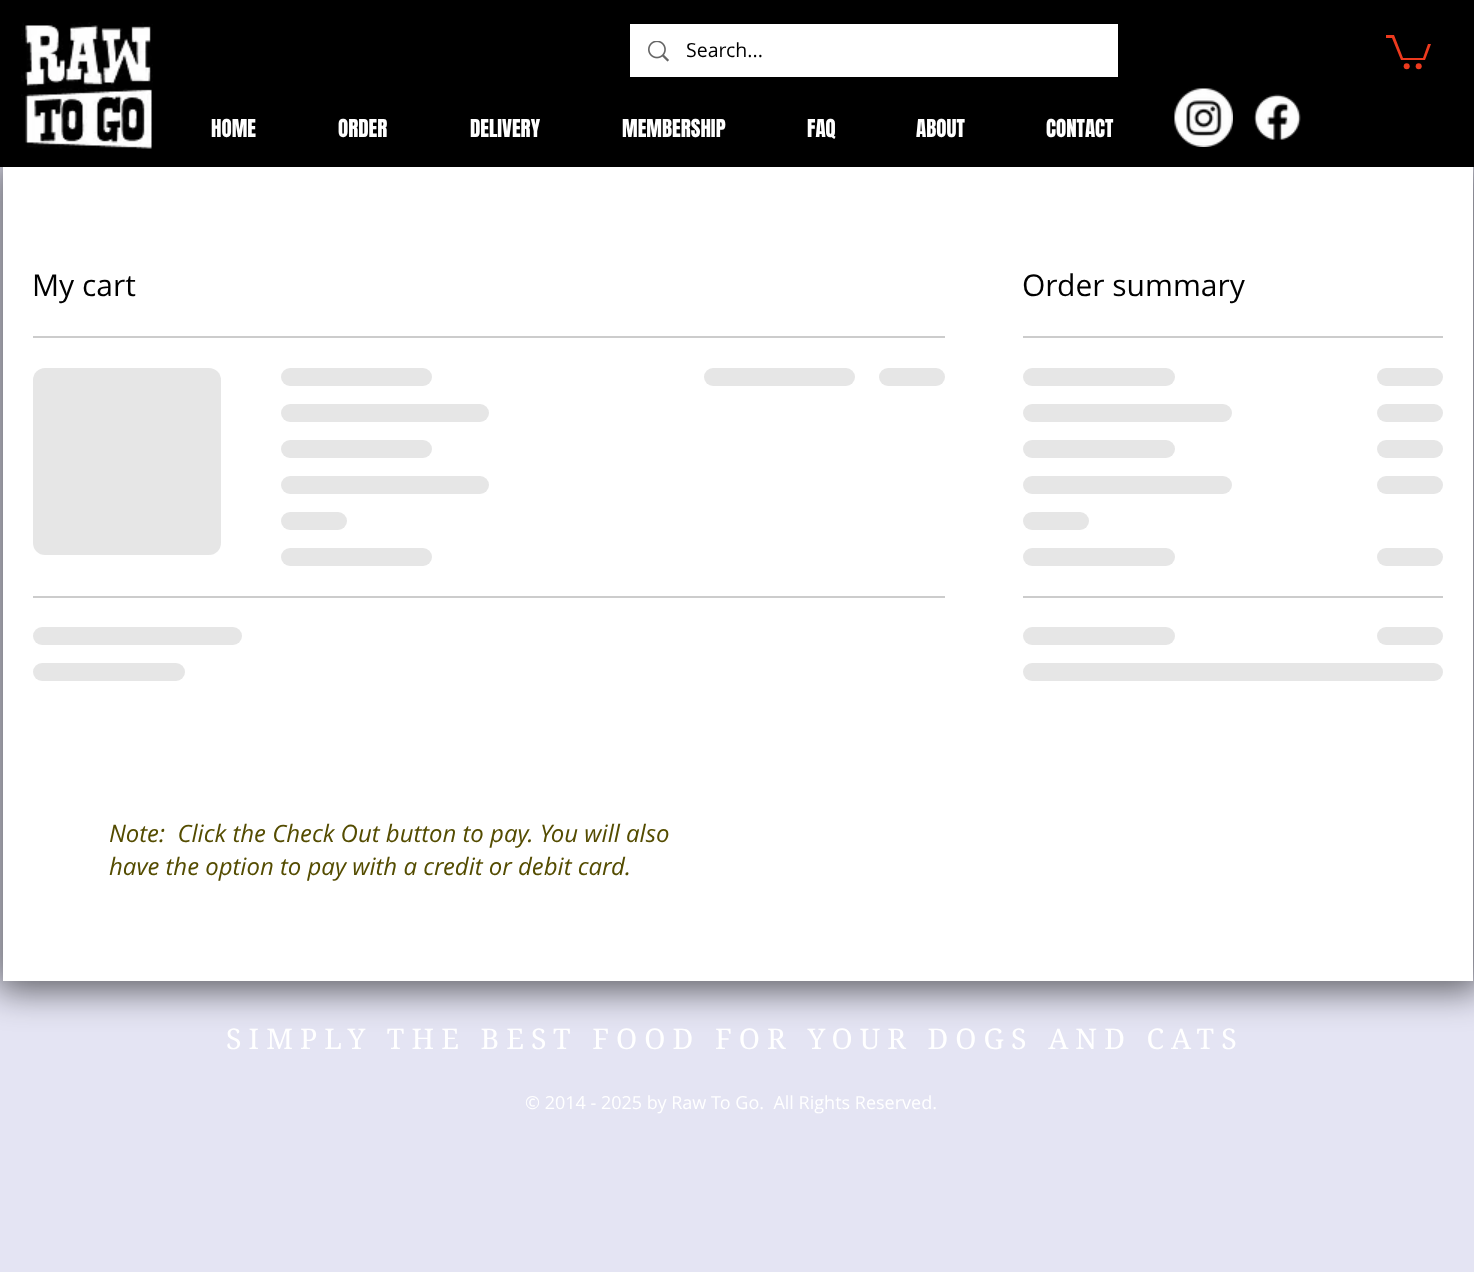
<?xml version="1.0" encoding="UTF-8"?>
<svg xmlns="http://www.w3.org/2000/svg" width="1474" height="1272">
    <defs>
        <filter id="blur1" x="-50%" y="-200%" width="200%" height="500%"><feGaussianBlur stdDeviation="18"/></filter>
        <linearGradient id="g1" gradientUnits="userSpaceOnUse" x1="33" y1="461" x2="783" y2="461"><stop offset="0.25" stop-color="#E6E6E6"/><stop offset="0.37" stop-color="#CCCCCC"/><stop offset="0.63" stop-color="#E6E6E6"/></linearGradient>
        <linearGradient id="g2" gradientUnits="userSpaceOnUse" x1="281" y1="377" x2="887" y2="377"><stop offset="0.25" stop-color="#E6E6E6"/><stop offset="0.37" stop-color="#CCCCCC"/><stop offset="0.63" stop-color="#E6E6E6"/></linearGradient>
        <linearGradient id="g3" gradientUnits="userSpaceOnUse" x1="281" y1="413" x2="1115" y2="413"><stop offset="0.25" stop-color="#E6E6E6"/><stop offset="0.37" stop-color="#CCCCCC"/><stop offset="0.63" stop-color="#E6E6E6"/></linearGradient>
        <linearGradient id="g4" gradientUnits="userSpaceOnUse" x1="281" y1="449" x2="887" y2="449"><stop offset="0.25" stop-color="#E6E6E6"/><stop offset="0.37" stop-color="#CCCCCC"/><stop offset="0.63" stop-color="#E6E6E6"/></linearGradient>
        <linearGradient id="g5" gradientUnits="userSpaceOnUse" x1="281" y1="485" x2="1115" y2="485"><stop offset="0.25" stop-color="#E6E6E6"/><stop offset="0.37" stop-color="#CCCCCC"/><stop offset="0.63" stop-color="#E6E6E6"/></linearGradient>
        <linearGradient id="g6" gradientUnits="userSpaceOnUse" x1="281" y1="521" x2="545" y2="521"><stop offset="0.25" stop-color="#E6E6E6"/><stop offset="0.37" stop-color="#CCCCCC"/><stop offset="0.63" stop-color="#E6E6E6"/></linearGradient>
        <linearGradient id="g7" gradientUnits="userSpaceOnUse" x1="281" y1="557" x2="887" y2="557"><stop offset="0.25" stop-color="#E6E6E6"/><stop offset="0.37" stop-color="#CCCCCC"/><stop offset="0.63" stop-color="#E6E6E6"/></linearGradient>
        <linearGradient id="g8" gradientUnits="userSpaceOnUse" x1="704" y1="377" x2="1310" y2="377"><stop offset="0.25" stop-color="#E6E6E6"/><stop offset="0.37" stop-color="#CCCCCC"/><stop offset="0.63" stop-color="#E6E6E6"/></linearGradient>
        <linearGradient id="g9" gradientUnits="userSpaceOnUse" x1="879" y1="377" x2="1143" y2="377"><stop offset="0.25" stop-color="#E6E6E6"/><stop offset="0.37" stop-color="#CCCCCC"/><stop offset="0.63" stop-color="#E6E6E6"/></linearGradient>
        <linearGradient id="g10" gradientUnits="userSpaceOnUse" x1="33" y1="636" x2="867" y2="636"><stop offset="0.25" stop-color="#E6E6E6"/><stop offset="0.37" stop-color="#CCCCCC"/><stop offset="0.63" stop-color="#E6E6E6"/></linearGradient>
        <linearGradient id="g11" gradientUnits="userSpaceOnUse" x1="33" y1="672" x2="639" y2="672"><stop offset="0.25" stop-color="#E6E6E6"/><stop offset="0.37" stop-color="#CCCCCC"/><stop offset="0.63" stop-color="#E6E6E6"/></linearGradient>
        <linearGradient id="g12" gradientUnits="userSpaceOnUse" x1="1023" y1="377" x2="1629" y2="377"><stop offset="0.25" stop-color="#E6E6E6"/><stop offset="0.37" stop-color="#CCCCCC"/><stop offset="0.63" stop-color="#E6E6E6"/></linearGradient>
        <linearGradient id="g13" gradientUnits="userSpaceOnUse" x1="1377" y1="377" x2="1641" y2="377"><stop offset="0.25" stop-color="#E6E6E6"/><stop offset="0.37" stop-color="#CCCCCC"/><stop offset="0.63" stop-color="#E6E6E6"/></linearGradient>
        <linearGradient id="g14" gradientUnits="userSpaceOnUse" x1="1023" y1="413" x2="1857" y2="413"><stop offset="0.25" stop-color="#E6E6E6"/><stop offset="0.37" stop-color="#CCCCCC"/><stop offset="0.63" stop-color="#E6E6E6"/></linearGradient>
        <linearGradient id="g15" gradientUnits="userSpaceOnUse" x1="1377" y1="413" x2="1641" y2="413"><stop offset="0.25" stop-color="#E6E6E6"/><stop offset="0.37" stop-color="#CCCCCC"/><stop offset="0.63" stop-color="#E6E6E6"/></linearGradient>
        <linearGradient id="g16" gradientUnits="userSpaceOnUse" x1="1023" y1="449" x2="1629" y2="449"><stop offset="0.25" stop-color="#E6E6E6"/><stop offset="0.37" stop-color="#CCCCCC"/><stop offset="0.63" stop-color="#E6E6E6"/></linearGradient>
        <linearGradient id="g17" gradientUnits="userSpaceOnUse" x1="1377" y1="449" x2="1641" y2="449"><stop offset="0.25" stop-color="#E6E6E6"/><stop offset="0.37" stop-color="#CCCCCC"/><stop offset="0.63" stop-color="#E6E6E6"/></linearGradient>
        <linearGradient id="g18" gradientUnits="userSpaceOnUse" x1="1023" y1="485" x2="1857" y2="485"><stop offset="0.25" stop-color="#E6E6E6"/><stop offset="0.37" stop-color="#CCCCCC"/><stop offset="0.63" stop-color="#E6E6E6"/></linearGradient>
        <linearGradient id="g19" gradientUnits="userSpaceOnUse" x1="1377" y1="485" x2="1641" y2="485"><stop offset="0.25" stop-color="#E6E6E6"/><stop offset="0.37" stop-color="#CCCCCC"/><stop offset="0.63" stop-color="#E6E6E6"/></linearGradient>
        <linearGradient id="g20" gradientUnits="userSpaceOnUse" x1="1023" y1="521" x2="1287" y2="521"><stop offset="0.25" stop-color="#E6E6E6"/><stop offset="0.37" stop-color="#CCCCCC"/><stop offset="0.63" stop-color="#E6E6E6"/></linearGradient>
        <linearGradient id="g21" gradientUnits="userSpaceOnUse" x1="1023" y1="557" x2="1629" y2="557"><stop offset="0.25" stop-color="#E6E6E6"/><stop offset="0.37" stop-color="#CCCCCC"/><stop offset="0.63" stop-color="#E6E6E6"/></linearGradient>
        <linearGradient id="g22" gradientUnits="userSpaceOnUse" x1="1377" y1="557" x2="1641" y2="557"><stop offset="0.25" stop-color="#E6E6E6"/><stop offset="0.37" stop-color="#CCCCCC"/><stop offset="0.63" stop-color="#E6E6E6"/></linearGradient>
        <linearGradient id="g23" gradientUnits="userSpaceOnUse" x1="1023" y1="636" x2="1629" y2="636"><stop offset="0.25" stop-color="#E6E6E6"/><stop offset="0.37" stop-color="#CCCCCC"/><stop offset="0.63" stop-color="#E6E6E6"/></linearGradient>
        <linearGradient id="g24" gradientUnits="userSpaceOnUse" x1="1377" y1="636" x2="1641" y2="636"><stop offset="0.25" stop-color="#E6E6E6"/><stop offset="0.37" stop-color="#CCCCCC"/><stop offset="0.63" stop-color="#E6E6E6"/></linearGradient>
        <linearGradient id="g25" gradientUnits="userSpaceOnUse" x1="1023" y1="672" x2="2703" y2="672"><stop offset="0.25" stop-color="#E6E6E6"/><stop offset="0.37" stop-color="#CCCCCC"/><stop offset="0.63" stop-color="#E6E6E6"/></linearGradient>
    </defs>
    <rect width="100%" height="100%" fill="#E4E4F3"/>
    <rect x="-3" y="161" width="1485" height="829" fill="#000000" fill-opacity="0.6" filter="url(#blur1)"/>
    <rect x="0" y="0" width="1474" height="167" fill="#000000"/>
    <image x="21" y="22" width="132" height="127" href="img_01.png"/>
    <rect x="630" y="24" width="488" height="53" fill="#FFFFFF"/>
    <image x="648" y="41" width="21" height="21" href="img_02.png"/>
    <text x="686" y="57" font-family="Open Sans" font-size="19.5" fill="#000000">Search...</text>
    <path d="M 1431 44 L 1425 60 H 1401 L 1392 38 H 1386 V 35 H 1394 L 1403 58 H 1423 L 1428 44" fill="#ED3A1E"/>
    <circle cx="1418.7" cy="66.3" r="3" fill="#ED3A1E"/>
    <circle cx="1406.7" cy="66.3" r="3" fill="#ED3A1E"/>
    <text x="211" y="137" font-family="Anton" font-size="21" fill="#FFFFFF">HOME</text>
    <text x="338" y="137" font-family="Anton" font-size="21" fill="#FFFFFF">ORDER</text>
    <text x="470" y="137" font-family="Anton" font-size="21" fill="#FFFFFF">DELIVERY</text>
    <text x="622" y="137" font-family="Anton" font-size="21" fill="#FFFFFF">MEMBERSHIP</text>
    <text x="807" y="137" font-family="Anton" font-size="21" fill="#FFFFFF">FAQ</text>
    <text x="916" y="137" font-family="Anton" font-size="21" fill="#FFFFFF">ABOUT</text>
    <text x="1046" y="137" font-family="Anton" font-size="21" fill="#FFFFFF">CONTACT</text>
    <image x="1174" y="88" width="59" height="59" href="img_03.png"/>
    <image x="1254" y="94" width="47" height="46" href="img_04.png"/>
    <rect x="3" y="167" width="1470" height="814" fill="#FFFFFF"/>
    <rect x="33" y="336" width="912" height="2" fill="#CCCCCC"/>
    <text x="32" y="296" font-family="Open Sans" font-size="30" fill="#000000">My cart</text>
    <rect x="33" y="368" width="188" height="187" rx="12" fill="url(#g1)"/>
    <rect x="281" y="368" width="151" height="18" rx="9" fill="url(#g2)"/>
    <rect x="281" y="404" width="208" height="18" rx="9" fill="url(#g3)"/>
    <rect x="281" y="440" width="151" height="18" rx="9" fill="url(#g4)"/>
    <rect x="281" y="476" width="208" height="18" rx="9" fill="url(#g5)"/>
    <rect x="281" y="512" width="66" height="18" rx="9" fill="url(#g6)"/>
    <rect x="281" y="548" width="151" height="18" rx="9" fill="url(#g7)"/>
    <rect x="704" y="368" width="151" height="18" rx="9" fill="url(#g8)"/>
    <rect x="879" y="368" width="66" height="18" rx="9" fill="url(#g9)"/>
    <rect x="33" y="596" width="912" height="2" fill="#CCCCCC"/>
    <rect x="33" y="627" width="209" height="18" rx="9" fill="url(#g10)"/>
    <rect x="33" y="663" width="152" height="18" rx="9" fill="url(#g11)"/>
    <rect x="1023" y="336" width="420" height="2" fill="#CCCCCC"/>
    <text x="1022" y="296" font-family="Open Sans" font-size="30" fill="#000000">Order summary</text>
    <rect x="1023" y="368" width="152" height="18" rx="9" fill="url(#g12)"/>
    <rect x="1377" y="368" width="66" height="18" rx="9" fill="url(#g13)"/>
    <rect x="1023" y="404" width="209" height="18" rx="9" fill="url(#g14)"/>
    <rect x="1377" y="404" width="66" height="18" rx="9" fill="url(#g15)"/>
    <rect x="1023" y="440" width="152" height="18" rx="9" fill="url(#g16)"/>
    <rect x="1377" y="440" width="66" height="18" rx="9" fill="url(#g17)"/>
    <rect x="1023" y="476" width="209" height="18" rx="9" fill="url(#g18)"/>
    <rect x="1377" y="476" width="66" height="18" rx="9" fill="url(#g19)"/>
    <rect x="1023" y="512" width="66" height="18" rx="9" fill="url(#g20)"/>
    <rect x="1023" y="548" width="152" height="18" rx="9" fill="url(#g21)"/>
    <rect x="1377" y="548" width="66" height="18" rx="9" fill="url(#g22)"/>
    <rect x="1023" y="596" width="420" height="2" fill="#CCCCCC"/>
    <rect x="1023" y="627" width="152" height="18" rx="9" fill="url(#g23)"/>
    <rect x="1377" y="627" width="66" height="18" rx="9" fill="url(#g24)"/>
    <rect x="1023" y="663" width="420" height="18" rx="9" fill="url(#g25)"/>
    <text font-family="Open Sans" font-size="24" font-style="italic" fill="#544C00" xml:space="preserve"><tspan x="109" y="842">Note:  Click the Check Out button to pay. You will also</tspan><tspan x="109" y="875">have the option to pay with a credit or debit card.</tspan></text>
    <text x="226" y="1049" font-family="'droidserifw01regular'" font-size="28.5" letter-spacing="7.1" fill="#FFFFFF">SIMPLY THE BEST FOOD FOR YOUR DOGS AND CATS</text>
    <text x="525" y="1109" font-family="Open Sans" font-size="18" fill="#FFFFFF" xml:space="preserve">© 2014 - 2025 by Raw To Go.  All Rights Reserved.</text>
</svg>
